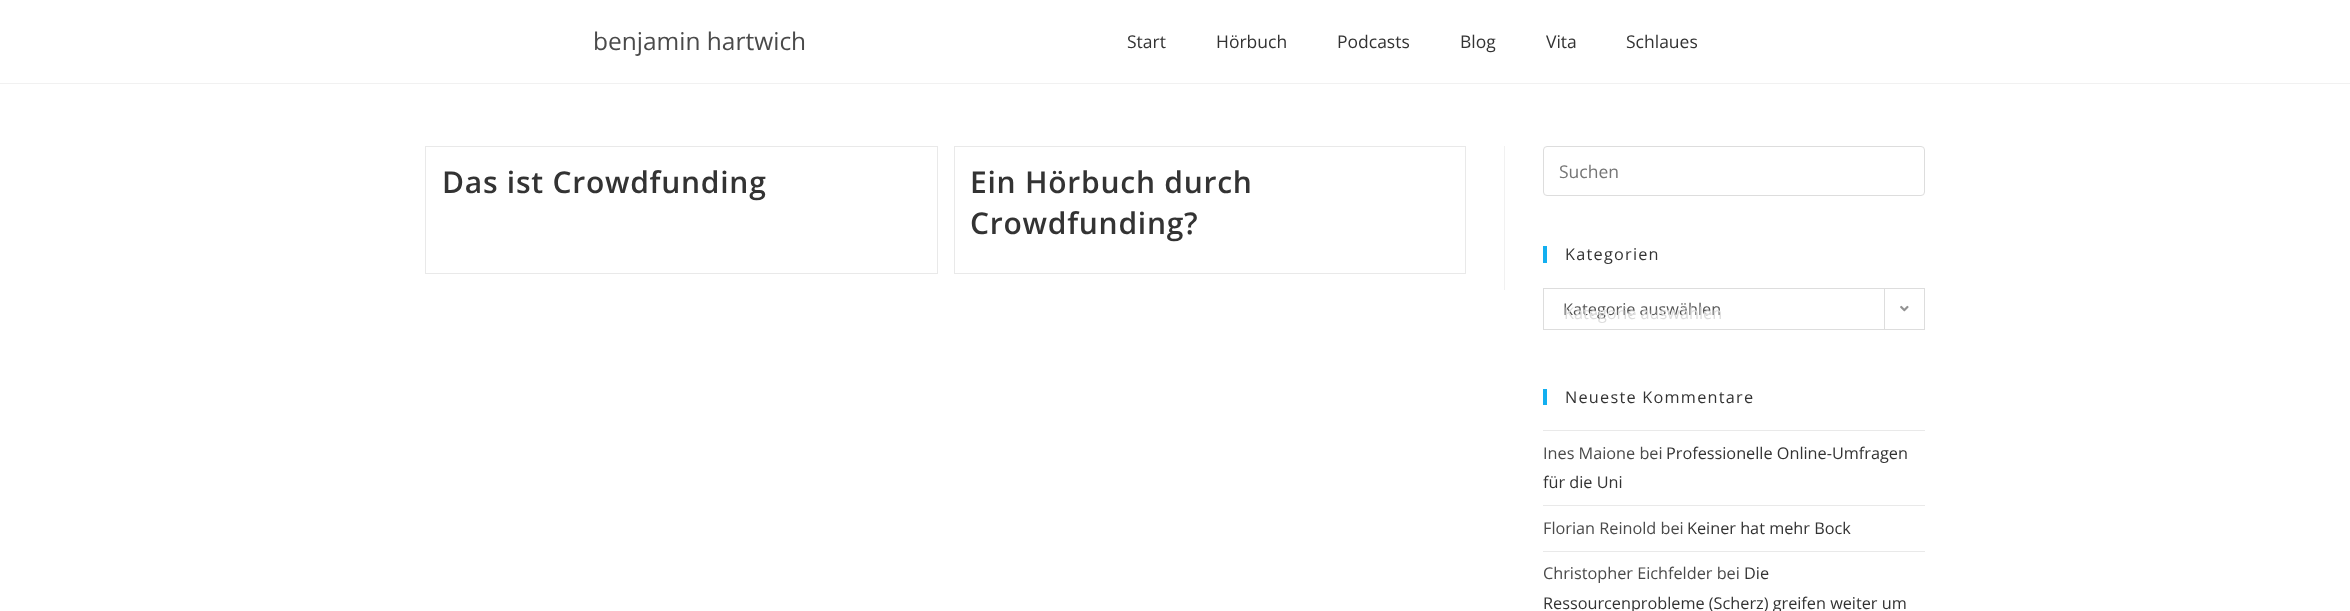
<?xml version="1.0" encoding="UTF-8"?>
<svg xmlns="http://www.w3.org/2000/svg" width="2350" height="611">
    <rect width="100%" height="100%" fill="#FFFFFF"/>
    <rect x="0" y="83" width="2350" height="1" fill="#F1F1F1"/>
    <text x="593" y="50" font-family="Open Sans" font-size="24.5" fill="#4A4A4A">benjamin hartwich</text>
    <text x="1127" y="48" font-family="Open Sans" font-size="17.5" fill="#333333">Start</text>
    <text x="1216" y="48" font-family="Open Sans" font-size="17.5" fill="#333333">Hörbuch</text>
    <text x="1337" y="48" font-family="Open Sans" font-size="17.5" fill="#333333">Podcasts</text>
    <text x="1460" y="48" font-family="Open Sans" font-size="17.5" fill="#333333">Blog</text>
    <text x="1546" y="48" font-family="Open Sans" font-size="17.5" fill="#333333">Vita</text>
    <text x="1626" y="48" font-family="Open Sans" font-size="17.5" fill="#333333">Schlaues</text>
    <rect x="1504" y="146" width="1" height="144" fill="#F1F1F1"/>
    <rect x="425.5" y="146.5" width="512" height="127" fill="none" stroke="#E9E9E9"/>
    <text x="442" y="193" font-family="Open Sans" font-size="30" font-weight="600" letter-spacing="0.75" fill="#333333">Das ist Crowdfunding</text>
    <rect x="954.5" y="146.5" width="511" height="127" fill="none" stroke="#E9E9E9"/>
    <text font-family="Open Sans" font-size="30" font-weight="600" letter-spacing="0.75" fill="#333333">
        <tspan x="970" y="193">Ein Hörbuch durch</tspan>
        <tspan x="970" y="234">Crowdfunding?</tspan>
    </text>
    <rect x="1543.5" y="146.5" width="381" height="49" rx="3.5" fill="none" stroke="#DDDDDD"/>
    <text x="1559" y="178" font-family="Open Sans" font-size="17.5" fill="#757575">Suchen</text>
    <rect x="1543" y="246" width="4" height="17" fill="#13AFF0"/>
    <text x="1565" y="260" font-family="Open Sans" font-size="16.25" letter-spacing="1.25" fill="#333333">Kategorien</text>
    <rect x="1543.5" y="288.5" width="381" height="41" fill="none" stroke="#DDDDDD"/>
    <text x="1563" y="315" font-family="Open Sans" font-size="16.25" fill="#555555">Kategorie auswählen</text>
    <rect x="1884" y="289" width="1" height="40" fill="#DDDDDD"/>
    <image x="1900" y="305" width="9" height="7" href="img_01.png"/>
    <text x="1564" y="319" font-family="Open Sans" font-size="16.25" fill="#DDDDDD">Kategorie auswählen</text>
    <rect x="1543" y="389" width="4" height="16" fill="#13AFF0"/>
    <text x="1565" y="403" font-family="Open Sans" font-size="16.25" letter-spacing="1.25" fill="#333333">Neueste Kommentare</text>
    <rect x="1543" y="430" width="382" height="1" fill="#E9E9E9"/>
    <rect x="1543" y="505" width="382" height="1" fill="#E9E9E9"/>
    <text x="1543" y="459" font-family="Open Sans" font-size="16.25" fill="#4A4A4A">Ines Maione bei</text>
    <text x="1666" y="459" font-family="Open Sans" font-size="16.25" fill="#333333">Professionelle Online-Umfragen</text>
    <text x="1543" y="488" font-family="Open Sans" font-size="16.25" fill="#333333">für die Uni</text>
    <rect x="1543" y="551" width="382" height="1" fill="#E9E9E9"/>
    <text x="1543" y="534" font-family="Open Sans" font-size="16.25" fill="#4A4A4A">Florian Reinold bei</text>
    <text x="1687" y="534" font-family="Open Sans" font-size="16.25" fill="#333333">Keiner hat mehr Bock</text>
    <text x="1543" y="579" font-family="Open Sans" font-size="16.25" fill="#4A4A4A">Christopher Eichfelder bei</text>
    <text x="1744" y="579" font-family="Open Sans" font-size="16.25" fill="#333333">Die</text>
    <text x="1543" y="609" font-family="Open Sans" font-size="16.25" fill="#333333">Ressourcenprobleme (Scherz) greifen weiter um</text>
</svg>
